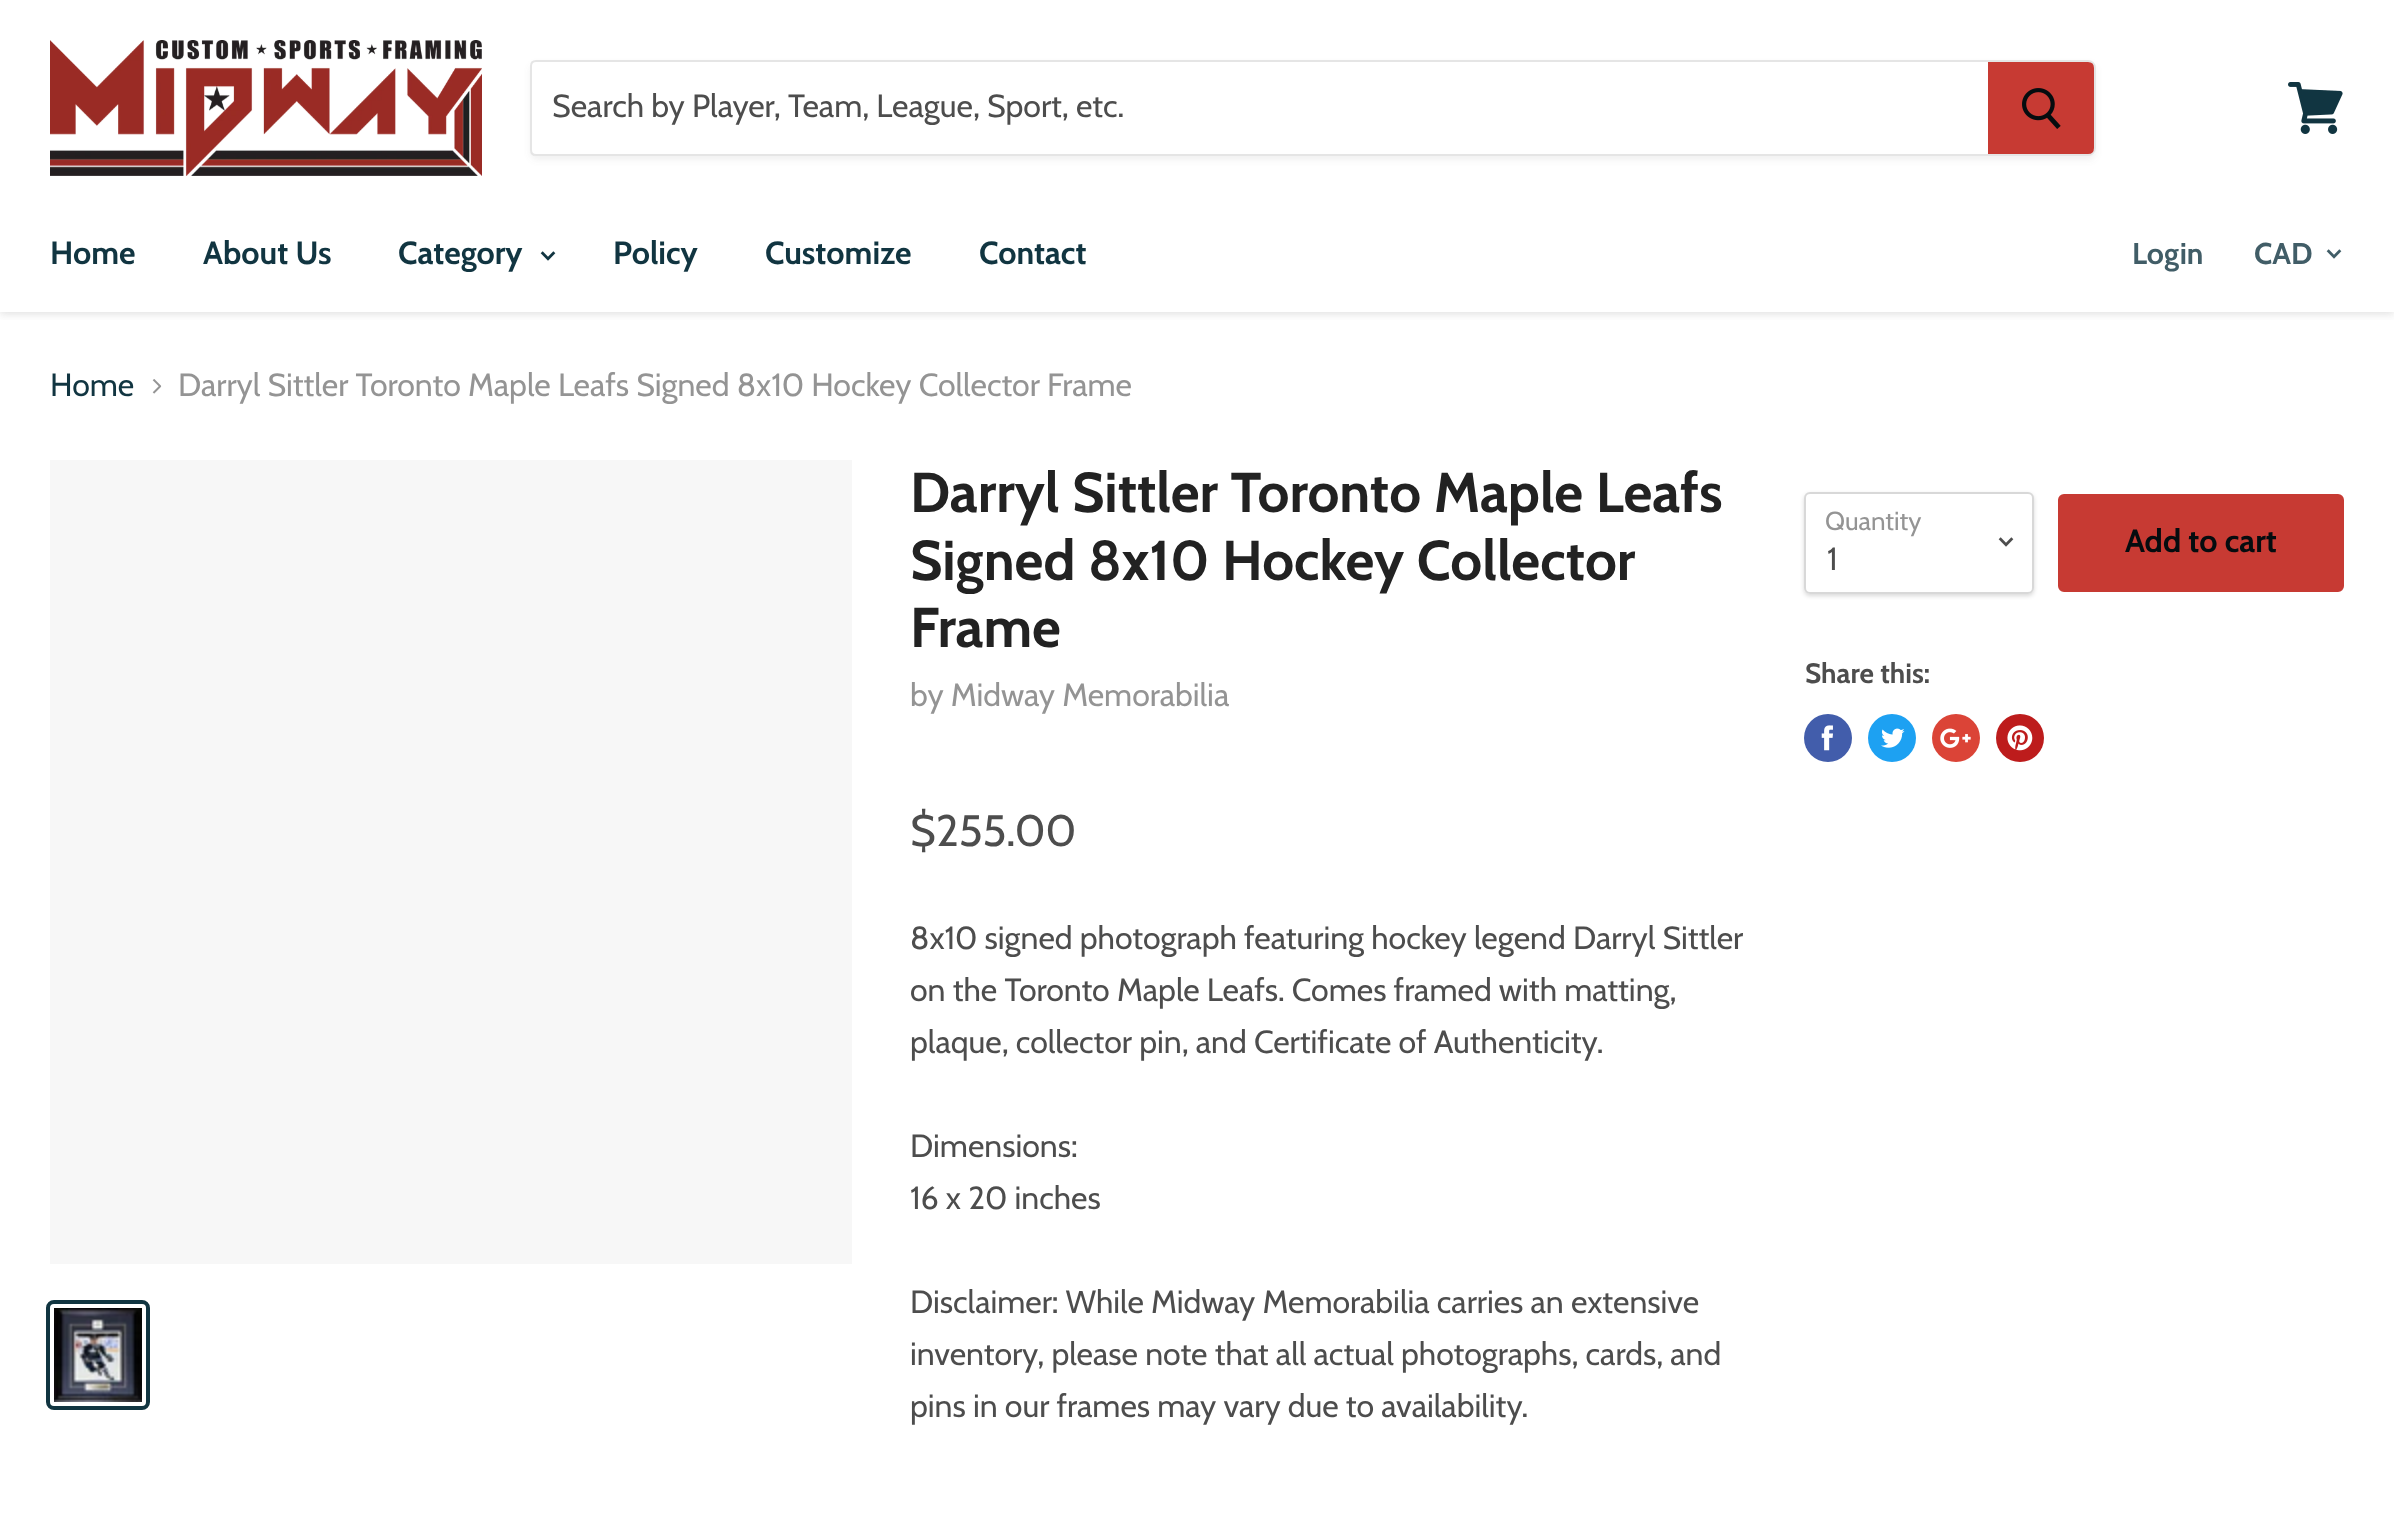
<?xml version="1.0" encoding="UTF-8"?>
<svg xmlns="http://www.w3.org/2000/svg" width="2394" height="1532">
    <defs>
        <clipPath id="clip1"><rect x="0" y="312" width="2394" height="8"/></clipPath>
        <filter id="blur1" x="-50%" y="-200%" width="200%" height="500%"><feGaussianBlur stdDeviation="4"/></filter>
        <clipPath id="clip2"><path d="M 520 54 H 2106 V 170 H 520 Z M 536 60 H 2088 C 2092.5 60 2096 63.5 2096 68 V 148 C 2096 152.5 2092.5 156 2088 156 H 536 C 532.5 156 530 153.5 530 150 V 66 C 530 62.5 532.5 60 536 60 Z" clip-rule="evenodd"/></clipPath>
        <filter id="blur2" x="-50%" y="-200%" width="200%" height="500%"><feGaussianBlur stdDeviation="3"/></filter>
        <clipPath id="clip3"><path d="M 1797 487 H 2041 V 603 H 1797 Z M 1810 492 H 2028 C 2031.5 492 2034 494.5 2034 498 V 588 C 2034 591.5 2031.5 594 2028 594 H 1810 C 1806.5 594 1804 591.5 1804 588 V 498 C 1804 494.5 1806.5 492 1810 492 Z" clip-rule="evenodd"/></clipPath>
        <filter id="blur3" x="-50%" y="-200%" width="200%" height="500%"><feGaussianBlur stdDeviation="2"/></filter>
    </defs>
    <rect width="100%" height="100%" fill="#FFFFFF"/>
    <g clip-path="url(#clip1)">
        <rect x="0" y="198" width="2394" height="116" fill="#7F7F7F" fill-opacity="0.25" filter="url(#blur1)"/>
    </g>
    <rect x="0" y="192" width="2394" height="4" fill="#FFFFFF"/>
    <image x="50" y="40" width="432" height="136" href="img_01.png"/>
    <g clip-path="url(#clip2)">
        <rect x="530" y="64" width="1566" height="96" rx="8" fill="#7F7F7F" fill-opacity="0.11" filter="url(#blur2)"/>
    </g>
    <path d="M 536 61 H 2088 C 2092 61 2095 64 2095 68 V 148 C 2095 152 2092 155 2088 155 H 536 C 533 155 531 153 531 150 V 66 C 531 63 533 61 536 61 Z" fill="none" stroke="#7F7F7F" stroke-opacity="0.2" stroke-width="2"/>
    <text x="552" y="117" font-family="Cabin" font-size="32" fill="#4D4D4D">Search by Player, Team, League, Sport, etc.</text>
    <path d="M 1989 63 H 2088 C 2091 63 2093 65 2093 68 V 148 C 2093 151 2091 153 2088 153 H 1989 Z" fill="#C73A33" stroke="#C73A33" stroke-width="2"/>
    <image x="2022" y="88" width="39" height="41" href="img_02.png"/>
    <image x="2288" y="82" width="55" height="52" href="img_03.png"/>
    <text x="50" y="264" font-family="Cabin" font-size="32" font-weight="700" fill="#113541">Home</text>
    <text x="203" y="264" font-family="Cabin" font-size="32" font-weight="700" fill="#113541">About Us</text>
    <text x="398" y="264" font-family="Cabin" font-size="32" font-weight="700" fill="#113541">Category</text>
    <image x="540" y="251" width="16" height="10" href="img_04.png"/>
    <text x="613" y="264" font-family="Cabin" font-size="32" font-weight="700" fill="#113541">Policy</text>
    <text x="765" y="264" font-family="Cabin" font-size="32" font-weight="700" fill="#113541">Customize</text>
    <text x="979" y="264" font-family="Cabin" font-size="32" font-weight="700" fill="#113541">Contact</text>
    <text x="2132" y="264" font-family="Cabin" font-size="30" font-weight="700" fill="#415D67">Login</text>
    <text x="2254" y="264" font-family="Cabin" font-size="30" font-weight="700" fill="#415D67">CAD</text>
    <image x="2326" y="249" width="16" height="10" href="img_05.png"/>
    <text x="50" y="396" font-family="Cabin" font-size="32" fill="#113541">Home</text>
    <image x="152" y="379" width="10" height="15" href="img_06.png"/>
    <text x="178" y="396" font-family="Cabin" font-size="32" fill="#949494">Darryl Sittler Toronto Maple Leafs Signed 8x10 Hockey Collector Frame</text>
    <rect x="50" y="460" width="802" height="804" fill="#F7F7F7"/>
    <rect x="48" y="1302" width="100" height="106" rx="6" fill="none" stroke="#113541" stroke-width="4"/>
    <image x="54" y="1308" width="88" height="94" href="img_07.png"/>
    <text font-family="Cabin" font-size="56" font-weight="700" fill="#222222">
        <tspan x="910" y="512">Darryl Sittler Toronto Maple Leafs</tspan>
        <tspan x="910" y="580">Signed 8x10 Hockey Collector</tspan>
        <tspan x="910" y="647">Frame</tspan>
    </text>
    <text x="910" y="706" font-family="Cabin" font-size="32" fill="#949494">by Midway Memorabilia</text>
    <text x="910" y="846" font-family="Cabin" font-size="44" fill="#4D4D4D">$255.00</text>
    <text font-family="Cabin" font-size="32" fill="#4D4D4D">
        <tspan x="910" y="949">8x10 signed photograph featuring hockey legend Darryl Sittler</tspan>
        <tspan x="910" y="1001">on the Toronto Maple Leafs. Comes framed with matting,</tspan>
        <tspan x="910" y="1053">plaque, collector pin, and Certificate of Authenticity.</tspan>
    </text>
    <text font-family="Cabin" font-size="32" fill="#4D4D4D">
        <tspan x="910" y="1157">Dimensions:</tspan>
        <tspan x="910" y="1209">16 x 20 inches</tspan>
    </text>
    <text font-family="Cabin" font-size="32" fill="#4D4D4D">
        <tspan x="910" y="1313">Disclaimer: While Midway Memorabilia carries an extensive</tspan>
        <tspan x="910" y="1365">inventory, please note that all actual photographs, cards, and</tspan>
        <tspan x="910" y="1417">pins in our frames may vary due to availability.</tspan>
    </text>
    <g clip-path="url(#clip3)">
        <rect x="1804" y="494" width="230" height="102" rx="6" fill="#000000" fill-opacity="0.15" filter="url(#blur3)"/>
    </g>
    <rect x="1805" y="493" width="228" height="100" rx="5" fill="none" stroke="#7F7F7F" stroke-opacity="0.3" stroke-width="2"/>
    <text x="1825" y="530" font-family="Cabin" font-size="26" fill="#949494">Quantity</text>
    <image x="1998" y="537" width="16" height="10" href="img_08.png"/>
    <text x="1827" y="570" font-family="Cabin" font-size="32" fill="#4D4D4D">1</text>
    <rect x="2059" y="495" width="284" height="96" rx="5" fill="#C73A33" stroke="#C73A33" stroke-width="2"/>
    <text x="2125" y="552" font-family="Cabin" font-size="32" font-weight="700" fill="#050C0F">Add to cart</text>
    <text x="1805" y="683" font-family="Cabin" font-size="28" font-weight="700" fill="#4D4D4D">Share this:</text>
    <circle cx="1828" cy="738" r="24" fill="#425DAB"/>
    <image x="1821" y="725" width="12" height="26" href="img_09.png"/>
    <circle cx="1892" cy="738" r="24" fill="#1DA1F2"/>
    <image x="1881" y="728" width="24" height="20" href="img_10.png"/>
    <circle cx="1956" cy="738" r="24" fill="#DB4437"/>
    <image x="1940" y="728" width="31" height="20" href="img_11.png"/>
    <circle cx="2020" cy="738" r="24" fill="#BD1C1C"/>
    <image x="2007" y="725" width="26" height="26" href="img_12.png"/>
</svg>
